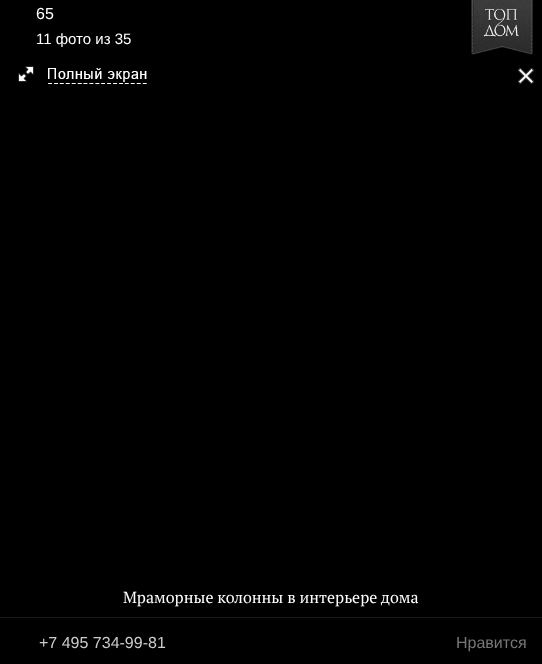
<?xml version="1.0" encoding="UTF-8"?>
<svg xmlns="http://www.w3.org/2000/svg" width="542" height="664">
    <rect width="100%" height="100%" fill="#000000"/>
    <text x="36" y="19" font-family="Liberation Sans" font-size="16" fill="#FFFFFF">65</text>
    <text x="36" y="44" font-family="Liberation Sans" font-size="15" fill="#FFFFFF">11 фото из 35</text>
    <image x="471" y="0" width="62" height="55" href="img_01.png"/>
    <image x="18" y="66" width="129" height="18" href="img_02.png"/>
    <image x="518" y="68" width="16" height="16" href="img_03.png"/>
    <text x="123" y="603" font-family="PT Serif" font-size="16" fill="#FFFFFF">Мраморные колонны в интерьере дома</text>
    <rect x="0" y="617" width="542" height="1" fill="#1A1A1A"/>
    <text x="39" y="648" font-family="Liberation Sans" font-size="16" fill="#CCCCCC">+7 495 734-99-81</text>
    <text x="456" y="648" font-family="Liberation Sans" font-size="16" fill="#777777">Нравится</text>
</svg>
